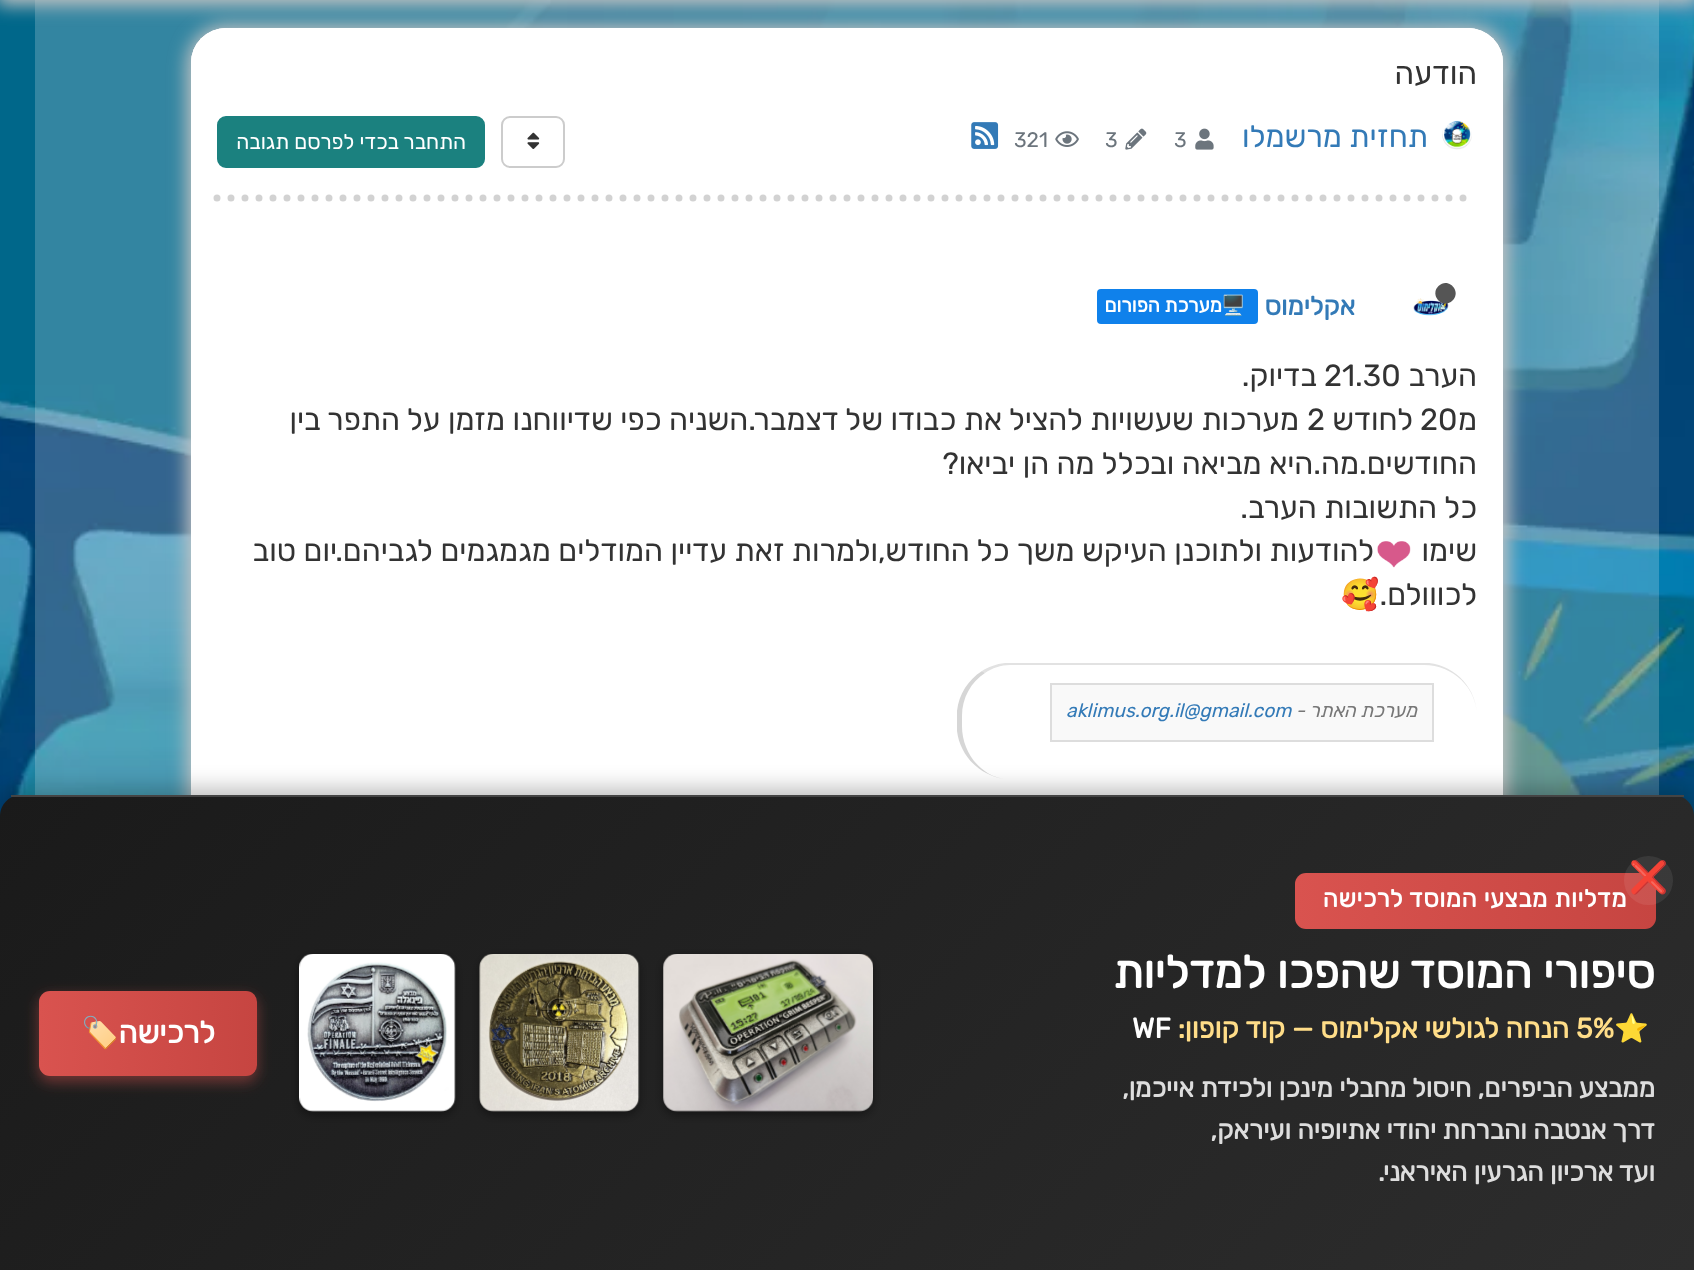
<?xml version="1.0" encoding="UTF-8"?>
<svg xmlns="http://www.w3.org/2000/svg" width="1694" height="1270">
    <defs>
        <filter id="blur1" x="-50%" y="-200%" width="200%" height="500%"><feGaussianBlur stdDeviation="9"/></filter>
        <filter id="blur2" x="-50%" y="-200%" width="200%" height="500%"><feGaussianBlur stdDeviation="10.5"/></filter>
        <clipPath id="clip1"><path d="M 21 795 H 1673 C 1684.5 795 1694 804.5 1694 816 V 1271 H 0 V 816 C 0 804.5 9.5 795 21 795 Z"/></clipPath>
        <linearGradient id="g1" gradientUnits="userSpaceOnUse" x1="305" y1="491" x2="1389" y2="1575"><stop offset="0" stop-color="#1A1A1A"/><stop offset="1" stop-color="#2D2D2D"/></linearGradient>
        <linearGradient id="g2" gradientUnits="userSpaceOnUse" x1="1295" y1="901" x2="1656" y2="901"><stop offset="0" stop-color="#D9534F"/><stop offset="1" stop-color="#C64541"/></linearGradient>
        <filter id="blur3" x="-50%" y="-200%" width="200%" height="500%"><feGaussianBlur stdDeviation="5"/></filter>
        <filter id="blur4" x="-50%" y="-200%" width="200%" height="500%"><feGaussianBlur stdDeviation="7"/></filter>
        <linearGradient id="g3" gradientUnits="userSpaceOnUse" x1="39" y1="1033" x2="257" y2="1033"><stop offset="0" stop-color="#D9534F"/><stop offset="1" stop-color="#C64541"/></linearGradient>
    </defs>
    <rect width="100%" height="100%" fill="#FFFFFF"/>
    <image x="0" y="0" width="1694" height="816" href="img_01.png"/>
    <rect x="187" y="25" width="1322" height="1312" rx="40" fill="#C3C3C3" filter="url(#blur1)"/>
    <rect x="191" y="28" width="1312" height="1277" rx="35" fill="#FFFFFF"/>
    <rect x="191" y="28" width="1312" height="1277" rx="35" fill="#FFFFFF" fill-opacity="0.9"/>
    <rect x="191" y="28" width="1312" height="173" rx="35" fill="#FFFFFF"/>
    <rect x="-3" y="-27" width="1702" height="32" fill="#C3C3C3" filter="url(#blur1)"/>
    <text x="1477" y="84" font-family="Rubik" font-size="31.5" direction="rtl" fill="#333333">הודעה</text>
    <path d="M 217 198 H 1477" fill="none" stroke="#D2D2D2" stroke-width="7" stroke-linecap="round" stroke-dasharray="0 14"/>
    <image x="1442" y="120" width="30" height="30" href="img_02.png"/>
    <text x="1428" y="147" font-family="Rubik" font-size="30.6" direction="rtl" fill="#337AB7">תחזית מרשמלו</text>
    <image x="1195" y="128" width="19" height="22" href="img_03.png"/>
    <text x="1174" y="147" font-family="Rubik" font-size="21" fill="#6C757D">3</text>
    <image x="1125" y="128" width="22" height="22" href="img_04.png"/>
    <text x="1105" y="147" font-family="Rubik" font-size="21" fill="#6C757D">3</text>
    <image x="1055" y="131" width="24" height="16" href="img_05.png"/>
    <text x="1014" y="147" font-family="Rubik" font-size="21" fill="#6C757D">321</text>
    <image x="971" y="122" width="28" height="27" href="img_06.png"/>
    <rect x="502" y="117" width="62" height="50" rx="8" fill="none" stroke="#CCCCCC" stroke-width="2"/>
    <image x="527" y="132" width="13" height="17" href="img_07.png"/>
    <rect x="218" y="117" width="266" height="50" rx="8" fill="#1B817F" stroke="#1B817F" stroke-width="2"/>
    <text x="466" y="149" font-family="Rubik" font-size="21" direction="rtl" fill="#FFFFFF">התחבר בכדי לפרסם תגובה</text>
    <image x="1413" y="298" width="36" height="18" href="img_08.png"/>
    <path d="M 1438.5 286 C 1448 276.5 1462 291 1452.5 300.5 C 1443 310 1429 295.5 1438.5 286 Z" fill="#555555"/>
    <text x="1355" y="315" font-family="Rubik" font-size="26" font-weight="700" direction="rtl" fill="#337AB7">אקלימוס</text>
    <rect x="1097" y="289" width="161" height="35" rx="4" fill="#0F81EB"/>
    <text x="1246" y="312" font-family="Noto Color Emoji" font-size="19.5" font-weight="700" direction="rtl" fill="#FFFFFF">🖥️</text>
    <text x="1222" y="312" font-family="Rubik" font-size="19.5" font-weight="700" direction="rtl" fill="#FFFFFF">מערכת הפורום</text>
    <text x="1477" y="386" font-family="Rubik" font-size="30.6" direction="rtl" fill="#333333">הערב</text>
    <text x="1324" y="386" font-family="Rubik" font-size="30.6" fill="#333333">21.30</text>
    <text x="1317" y="386" font-family="Rubik" font-size="30.6" direction="rtl" fill="#333333">בדיוק.</text>
    <text x="1477" y="430" font-family="Rubik" font-size="30.6" direction="rtl" fill="#333333">מ</text>
    <text x="1420" y="430" font-family="Rubik" font-size="30.6" fill="#333333">20</text>
    <text x="1413" y="430" font-family="Rubik" font-size="30.6" direction="rtl" fill="#333333">לחודש</text>
    <text x="1307" y="430" font-family="Rubik" font-size="30.6" fill="#333333">2</text>
    <text x="1299" y="430" font-family="Rubik" font-size="30.6" direction="rtl" fill="#333333">מערכות שעשויות להציל את כבודו של דצמבר.השניה כפי שדיווחנו מזמן על התפר בין</text>
    <text font-family="Rubik" font-size="30.6" direction="rtl" fill="#333333">
        <tspan x="1477" y="474">החודשים.מה.היא מביאה ובכלל מה הן יביאו?</tspan>
        <tspan x="1477" y="518">כל התשובות הערב.</tspan>
        <tspan x="1477" y="561">שימו</tspan>
    </text>
    <image x="1377" y="541" width="34" height="27" href="img_09.png"/>
    <text x="1374" y="561" font-family="Rubik" font-size="30.6" direction="rtl" fill="#333333">️להודעות ולתוכנן העיקש משך כל החודש,ולמרות זאת עדיין המודלים מגמגמים לגביהם.יום טוב</text>
    <text x="1477" y="605" font-family="Rubik" font-size="30.6" direction="rtl" fill="#333333">לכווולם.</text>
    <text x="1379" y="605" font-family="Noto Color Emoji" font-size="30.6" direction="rtl" fill="#333333">🥰</text>
    <path d="M 1010 665 C 1001 665 992 668 985 673 L 982 671 C 988 667 996 664 1005 663 H 1429 C 1456 666 1477 689 1477 716 C 1477 688 1453 665 1424 665 Z" fill="#E2E2E2"/>
    <path d="M 957 711 C 959 694 968 680 982 671 L 985 673 C 971 682 962 698 962 716 V 726 C 962 753 981 776 1005 779 C 980 776 960 756 957 731 Z" fill="#D6D6D6"/>
    <rect x="1050" y="683" width="383" height="2" fill="#DDDDDD"/>
    <rect x="1432" y="683" width="2" height="59" fill="#DDDDDD"/>
    <rect x="1050" y="740" width="383" height="2" fill="#DDDDDD"/>
    <rect x="1050" y="683" width="2" height="59" fill="#DDDDDD"/>
    <rect x="1052" y="685" width="380" height="55" fill="#F9F9F9"/>
    <text x="1417" y="717" font-family="Rubik" font-size="19.25" font-style="italic" direction="rtl" fill="#777777">מערכת האתר -</text>
    <text x="1066" y="717" font-family="Rubik" font-size="19.25" font-style="italic" fill="#337AB7">aklimus.org.il@gmail.com</text>
    <rect x="0" y="788" width="1694" height="476" rx="21" fill="#000000" fill-opacity="0.25" filter="url(#blur2)"/>
    <g clip-path="url(#clip1)">
        <rect x="0" y="797" width="1694" height="473" fill="url(#g1)"/>
    </g>
    <rect x="11" y="795" width="1673" height="2" fill="#444444"/>
    <rect x="1295" y="873" width="361" height="56" rx="11" fill="url(#g2)"/>
    <circle cx="1648.5" cy="880.5" r="24.5" fill="#FFFFFF" fill-opacity="0.08"/>
    <text x="1629" y="888" font-family="Noto Color Emoji" font-size="31.5" fill="#EEEEEE">❌</text>
    <text x="1627" y="907" font-family="Rubik" font-size="24.5" font-weight="700" letter-spacing="0.5" direction="rtl" fill="#FFFFFF">מדליות מבצעי המוסד לרכישה</text>
    <text x="1655" y="988" font-family="Rubik" font-size="45.5" font-weight="700" direction="rtl" fill="#FFFFFF">סיפורי המוסד שהפכו למדליות</text>
    <text x="1614" y="1038" font-family="Noto Color Emoji" font-size="28" font-weight="700" fill="#FFDD88">⭐</text>
    <text x="1576" y="1038" font-family="Rubik" font-size="28" font-weight="700" fill="#FFDD88">5%</text>
    <text x="1569" y="1038" font-family="Rubik" font-size="28" font-weight="700" direction="rtl" fill="#FFDD88">הנחה לגולשי אקלימוס — קוד קופון:</text>
    <text x="1132" y="1038" font-family="Rubik" font-size="28" font-weight="700" fill="#FFFFFF">WF</text>
    <text font-family="Rubik" font-size="26.25" font-weight="700" direction="rtl" fill="#DDDDDD">
        <tspan x="1655" y="1097">ממבצע הביפרים, חיסול מחבלי מינכן ולכידת אייכמן,</tspan>
        <tspan x="1655" y="1139">דרך אנטבה והברחת יהודי אתיופיה ועיראק,</tspan>
        <tspan x="1655" y="1181">ועד ארכיון הגרעין האיראני.</tspan>
    </text>
    <rect x="663" y="957" width="210" height="158" rx="14" fill="#000000" fill-opacity="0.4" filter="url(#blur3)"/>
    <image x="663" y="954" width="210" height="158" href="img_10.png"/>
    <rect x="480" y="957" width="159" height="158" rx="14" fill="#000000" fill-opacity="0.4" filter="url(#blur3)"/>
    <image x="479" y="954" width="161" height="158" href="img_11.png"/>
    <rect x="299" y="957" width="156" height="158" rx="14" fill="#000000" fill-opacity="0.4" filter="url(#blur3)"/>
    <image x="299" y="954" width="157" height="158" href="img_12.png"/>
    <rect x="39" y="996" width="218" height="86" rx="11" fill="#D9534F" fill-opacity="0.45" filter="url(#blur4)"/>
    <rect x="39" y="991" width="218" height="85" rx="11" fill="url(#g3)"/>
    <text x="215" y="1043" font-family="Rubik" font-size="30.6" font-weight="700" direction="rtl" fill="#FFFFFF">לרכישה</text>
    <text x="119" y="1043" font-family="Noto Color Emoji" font-size="30.6" font-weight="700" direction="rtl" fill="#FFFFFF">🏷️</text>
</svg>
